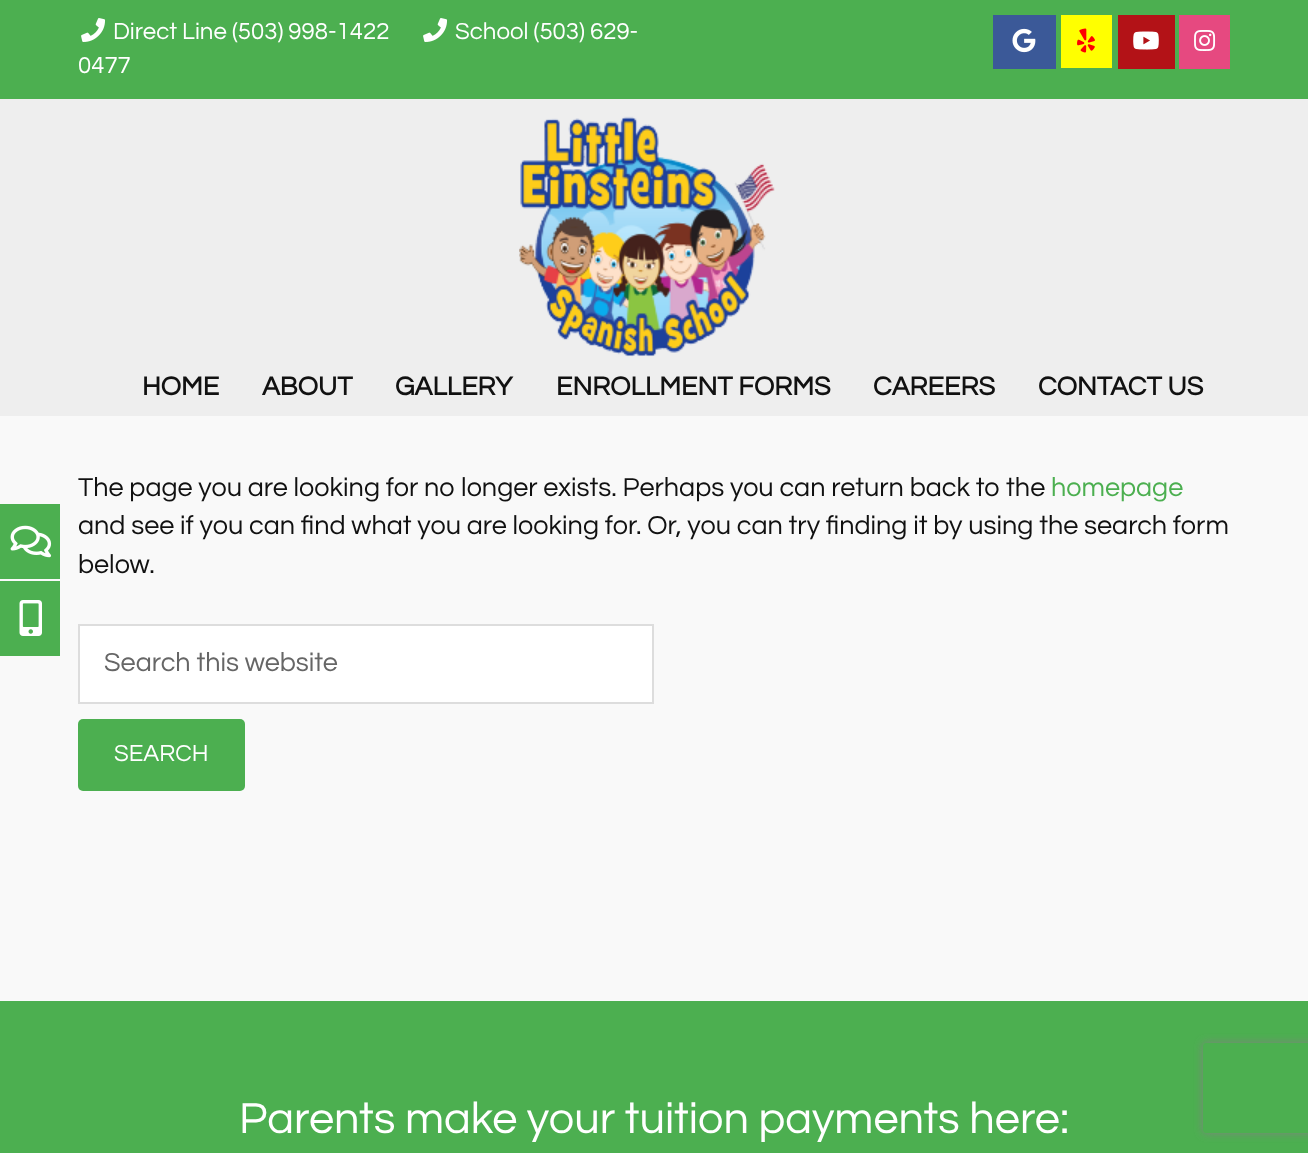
<?xml version="1.0" encoding="UTF-8"?>
<svg xmlns="http://www.w3.org/2000/svg" width="1308" height="1153">
    <defs>
        <clipPath id="clip1"><path d="M 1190 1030 H 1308 V 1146 H 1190 Z M 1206 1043 H 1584 C 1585.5 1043 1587 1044.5 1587 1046 V 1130 C 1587 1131.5 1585.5 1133 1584 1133 H 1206 C 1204.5 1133 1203 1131.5 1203 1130 V 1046 C 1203 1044.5 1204.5 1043 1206 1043 Z" clip-rule="evenodd"/></clipPath>
        <filter id="blur1" x="-50%" y="-200%" width="200%" height="500%"><feGaussianBlur stdDeviation="4"/></filter>
    </defs>
    <rect width="100%" height="100%" fill="#F9F9F9"/>
    <rect x="0" y="504" width="60" height="75" fill="#4CAF50"/>
    <image x="10" y="525" width="42" height="33" href="img_01.png"/>
    <rect x="0" y="581" width="60" height="75" fill="#4CAF50"/>
    <image x="19" y="600" width="23" height="36" href="img_02.png"/>
    <rect x="0" y="0" width="1308" height="99" fill="#4CAF50"/>
    <image x="81" y="18" width="25" height="24" href="img_03.png"/>
    <image x="423" y="18" width="25" height="24" href="img_03.png"/>
    <text x="455" y="39" font-family="Questrial" font-size="24" fill="#FFFFFF">School (503) 629-</text>
    <text x="78" y="73" font-family="Questrial" font-size="24" fill="#FFFFFF">0477</text>
    <text x="113" y="39" font-family="Questrial" font-size="24" fill="#FFFFFF">Direct Line (503) 998-1422</text>
    <rect x="993" y="15" width="63" height="54" fill="#3B5998"/>
    <image x="1012" y="28" width="24" height="25" href="img_04.png"/>
    <rect x="1061" y="15" width="51" height="53" fill="#FFFF00"/>
    <image x="1077" y="28" width="18" height="25" href="img_05.png"/>
    <rect x="1118" y="15" width="57" height="54" fill="#B31217"/>
    <image x="1133" y="31" width="26" height="19" href="img_06.png"/>
    <rect x="1179" y="15" width="51" height="54" fill="#E64980"/>
    <image x="1194" y="30" width="22" height="21" href="img_07.png"/>
    <rect x="0" y="99" width="1308" height="317" fill="#EEEEEE"/>
    <image x="519" y="116" width="256" height="241" href="img_08.png"/>
    <text x="142" y="395" font-family="Questrial" font-size="27" font-weight="700" fill="#111111">HOME</text>
    <text x="262" y="395" font-family="Questrial" font-size="27" font-weight="700" fill="#111111">ABOUT</text>
    <text x="395" y="395" font-family="Questrial" font-size="27" font-weight="700" fill="#111111">GALLERY</text>
    <text x="556" y="395" font-family="Questrial" font-size="27" font-weight="700" fill="#111111">ENROLLMENT FORMS</text>
    <text x="873" y="395" font-family="Questrial" font-size="27" font-weight="700" fill="#111111">CAREERS</text>
    <text x="1038" y="395" font-family="Questrial" font-size="27" font-weight="700" fill="#111111">CONTACT US</text>
    <text x="78" y="496" font-family="Questrial" font-size="27" fill="#111111">The page you are looking for no longer exists. Perhaps you can return back to the</text>
    <text x="1051" y="496" font-family="Questrial" font-size="27" fill="#4CAF50">homepage</text>
    <text font-family="Questrial" font-size="27" fill="#111111">
        <tspan x="78" y="534">and see if you can find what you are looking for. Or, you can try finding it by using the search form</tspan>
        <tspan x="78" y="573">below.</tspan>
    </text>
    <rect x="79" y="625" width="574" height="78" fill="#FFFFFF" stroke="#DDDDDD" stroke-width="2"/>
    <text x="104" y="671" font-family="Questrial" font-size="27" fill="#666666">Search this website</text>
    <rect x="78" y="719" width="167" height="72" rx="5" fill="#4CAF50"/>
    <text x="114" y="761" font-family="Questrial" font-size="24" fill="#FFFFFF">SEARCH</text>
    <rect x="0" y="1001" width="1308" height="152" fill="#4CAF50"/>
    <text x="239" y="1133" font-family="Questrial" font-size="45" fill="#FFFFFF">Parents make your tuition payments here:</text>
    <g clip-path="url(#clip1)">
        <rect x="1203" y="1043" width="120" height="90" rx="3" fill="#808080" filter="url(#blur1)"/>
    </g>
</svg>
